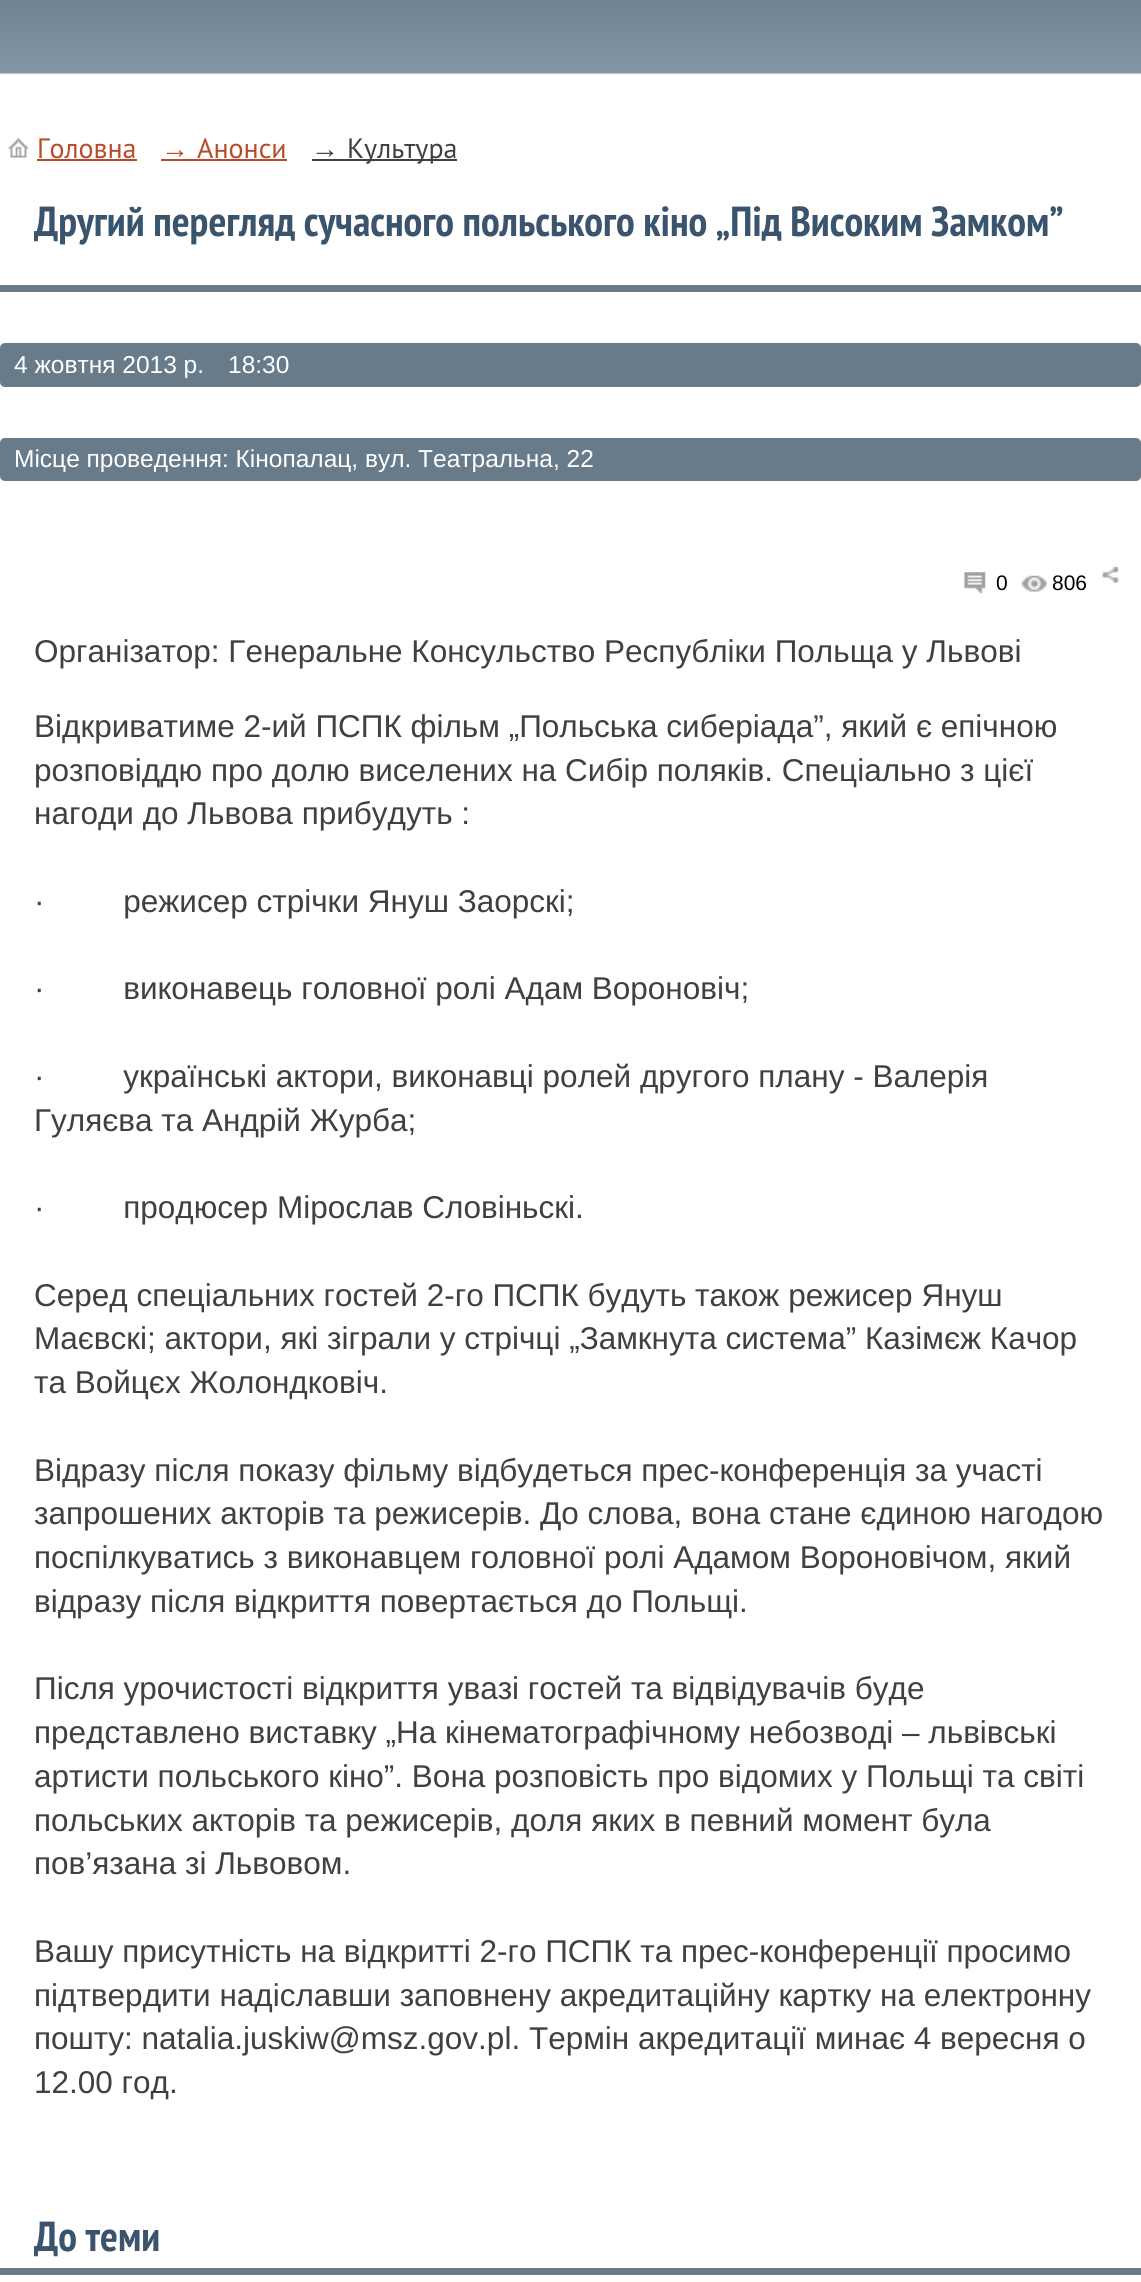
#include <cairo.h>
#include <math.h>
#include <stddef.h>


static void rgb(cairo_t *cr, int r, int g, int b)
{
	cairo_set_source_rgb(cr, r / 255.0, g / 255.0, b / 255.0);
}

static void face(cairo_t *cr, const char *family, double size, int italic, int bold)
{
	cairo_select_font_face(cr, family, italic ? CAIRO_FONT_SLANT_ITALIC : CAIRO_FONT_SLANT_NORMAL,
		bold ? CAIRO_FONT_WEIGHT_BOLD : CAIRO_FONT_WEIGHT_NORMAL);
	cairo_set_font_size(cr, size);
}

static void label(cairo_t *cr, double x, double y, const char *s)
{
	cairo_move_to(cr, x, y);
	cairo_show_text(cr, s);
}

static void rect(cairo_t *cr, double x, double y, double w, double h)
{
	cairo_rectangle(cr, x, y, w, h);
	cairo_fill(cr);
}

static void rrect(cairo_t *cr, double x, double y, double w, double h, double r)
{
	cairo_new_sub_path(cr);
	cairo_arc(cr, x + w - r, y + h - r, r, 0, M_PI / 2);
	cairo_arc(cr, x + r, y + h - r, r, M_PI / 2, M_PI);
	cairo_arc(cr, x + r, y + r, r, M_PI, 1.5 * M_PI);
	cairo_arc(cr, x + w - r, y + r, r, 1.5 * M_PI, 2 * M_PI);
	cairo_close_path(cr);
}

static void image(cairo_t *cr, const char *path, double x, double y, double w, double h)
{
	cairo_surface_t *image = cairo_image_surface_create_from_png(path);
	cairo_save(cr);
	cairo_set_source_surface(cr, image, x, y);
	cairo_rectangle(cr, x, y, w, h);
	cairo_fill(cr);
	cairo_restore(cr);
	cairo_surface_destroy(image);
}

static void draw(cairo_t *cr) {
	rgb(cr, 255, 255, 255);
	cairo_paint(cr);
	rgb(cr, 235, 237, 241);
	rect(cr, 0, 73, 1141, 1);
	image(cr, "image0.png", 0, 0, 1141, 74);
	image(cr, "image1.png", 8, 138, 20, 20);
	face(cr, "PT Sans", 28, 0, 0);
	rgb(cr, 184, 75, 42);
	label(cr, 37, 158, "Головна");
	rect(cr, 37, 159, 100, 2);
	face(cr, "Liberation Serif", 28, 0, 0);
	label(cr, 161, 158, "→");
	rect(cr, 161, 159, 126, 2);
	face(cr, "PT Sans", 28, 0, 0);
	label(cr, 197, 158, "Анонси");
	face(cr, "Liberation Serif", 28, 0, 0);
	rgb(cr, 64, 64, 64);
	label(cr, 311, 158, "→");
	rect(cr, 312, 159, 145, 2);
	face(cr, "PT Sans", 28, 0, 0);
	label(cr, 347, 158, "Культура");
	rgb(cr, 104, 123, 139);
	rect(cr, 0, 285, 1141, 7);
	face(cr, "PT Sans Narrow", 42, 0, 1);
	rgb(cr, 58, 84, 109);
	label(cr, 34, 236, "Другий перегляд сучасного польського кіно „Під Високим Замком”");
	rgb(cr, 104, 123, 139);
	rrect(cr, 0, 343, 1141, 44, 5);
	cairo_fill(cr);
	face(cr, "Liberation Sans", 24.5, 0, 0);
	rgb(cr, 255, 255, 255);
	label(cr, 14, 373, "4 жовтня 2013 р.");
	label(cr, 228, 373, "18:30");
	rgb(cr, 104, 123, 139);
	rrect(cr, 0, 438, 1141, 43, 5);
	cairo_fill(cr);
	rgb(cr, 255, 255, 255);
	label(cr, 14, 467, "Місце проведення: Кінопалац, вул. Театральна, 22");
	image(cr, "image2.png", 964, 572, 22, 22);
	face(cr, "Liberation Sans", 21, 0, 0);
	rgb(cr, 0, 0, 0);
	label(cr, 996, 590, "0");
	image(cr, "image3.png", 1020, 575, 28, 17);
	label(cr, 1052, 590, "806");
	image(cr, "image4.png", 1102, 567, 17, 16);
	face(cr, "Liberation Sans", 31.5, 0, 0);
	rgb(cr, 64, 64, 64);
	label(cr, 34, 662, "Організатор: Генеральне Консульство Республіки Польща у Львові");
	label(cr, 34, 737, "Відкриватиме 2-ий ПСПК фільм „Польська сиберіада”, який є епічною");
	label(cr, 34, 781, "розповіддю про долю виселених на Сибір поляків. Спеціально з цієї");
	label(cr, 34, 824, "нагоди до Львова прибудуть :");
	label(cr, 34, 912, "·         режисер стрічки Януш Заорскі;");
	label(cr, 34, 999, "·         виконавець головної ролі Адам Вороновіч;");
	label(cr, 34, 1087, "·         українські актори, виконавці ролей другого плану - Валерія");
	label(cr, 34, 1131, "Гуляєва та Андрій Журба;");
	label(cr, 34, 1218, "·         продюсер Мірослав Словіньскі.");
	label(cr, 34, 1306, "Серед спеціальних гостей 2-го ПСПК будуть також режисер Януш");
	label(cr, 34, 1349, "Маєвскі; актори, які зіграли у стрічці „Замкнута система” Казімєж Качор");
	label(cr, 34, 1393, "та Войцєх Жолондковіч.");
	label(cr, 34, 1481, "Відразу після показу фільму відбудеться прес-конференція за участі");
	label(cr, 34, 1524, "запрошених акторів та режисерів. До слова, вона стане єдиною нагодою");
	label(cr, 34, 1568, "поспілкуватись з виконавцем головної ролі Адамом Вороновічом, який");
	label(cr, 34, 1612, "відразу після відкриття повертається до Польщі.");
	label(cr, 34, 1699, "Після урочистості відкриття увазі гостей та відвідувачів буде");
	label(cr, 34, 1743, "представлено виставку „На кінематографічному небозводі – львівські");
	label(cr, 34, 1787, "артисти польського кіно”. Вона розповість про відомих у Польщі та світі");
	label(cr, 34, 1831, "польських акторів та режисерів, доля яких в певний момент була");
	label(cr, 34, 1874, "пов’язана зі Львовом.");
	label(cr, 34, 1962, "Вашу присутність на відкритті 2-го ПСПК та прес-конференції просимо");
	label(cr, 34, 2006, "підтвердити надіславши заповнену акредитаційну картку на електронну");
	label(cr, 34, 2049, "пошту: natalia.juskiw@msz.gov.pl. Термін акредитації минає 4 вересня о");
	label(cr, 34, 2093, "12.00 год.");
	rgb(cr, 104, 123, 139);
	rect(cr, 0, 2268, 1141, 7);
	face(cr, "PT Sans Narrow", 42, 0, 1);
	rgb(cr, 58, 84, 109);
	label(cr, 34, 2251, "До теми");
}

int main(void) {
	cairo_surface_t *surface = cairo_image_surface_create(CAIRO_FORMAT_RGB24, 1141, 2282);
	cairo_t *cr = cairo_create(surface);
	cairo_font_options_t *options = cairo_font_options_create();
	cairo_font_options_set_hint_metrics(options, CAIRO_HINT_METRICS_OFF);
	cairo_font_options_set_hint_style(options, CAIRO_HINT_STYLE_NONE);
	cairo_set_font_options(cr, options);
	cairo_set_miter_limit(cr, 4);
	draw(cr);
	cairo_surface_write_to_png(surface, "render.png");
	cairo_font_options_destroy(options);
	cairo_destroy(cr);
	cairo_surface_destroy(surface);
	return 0;
}
